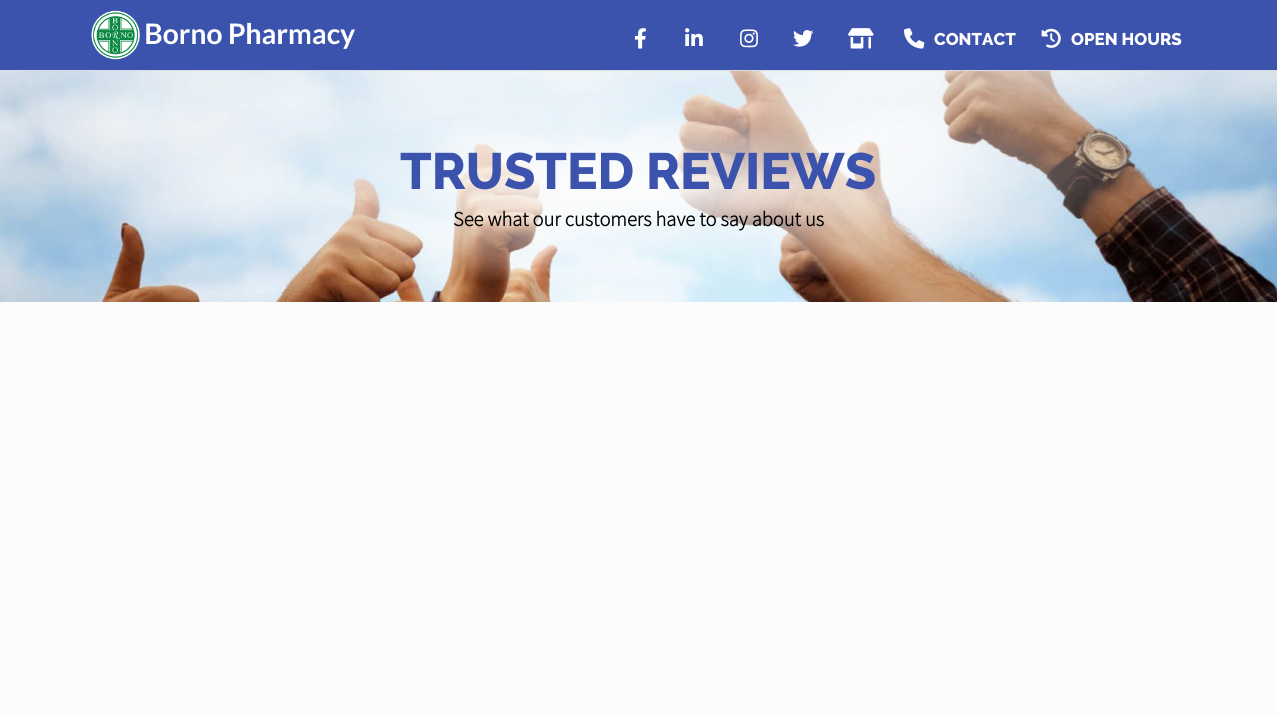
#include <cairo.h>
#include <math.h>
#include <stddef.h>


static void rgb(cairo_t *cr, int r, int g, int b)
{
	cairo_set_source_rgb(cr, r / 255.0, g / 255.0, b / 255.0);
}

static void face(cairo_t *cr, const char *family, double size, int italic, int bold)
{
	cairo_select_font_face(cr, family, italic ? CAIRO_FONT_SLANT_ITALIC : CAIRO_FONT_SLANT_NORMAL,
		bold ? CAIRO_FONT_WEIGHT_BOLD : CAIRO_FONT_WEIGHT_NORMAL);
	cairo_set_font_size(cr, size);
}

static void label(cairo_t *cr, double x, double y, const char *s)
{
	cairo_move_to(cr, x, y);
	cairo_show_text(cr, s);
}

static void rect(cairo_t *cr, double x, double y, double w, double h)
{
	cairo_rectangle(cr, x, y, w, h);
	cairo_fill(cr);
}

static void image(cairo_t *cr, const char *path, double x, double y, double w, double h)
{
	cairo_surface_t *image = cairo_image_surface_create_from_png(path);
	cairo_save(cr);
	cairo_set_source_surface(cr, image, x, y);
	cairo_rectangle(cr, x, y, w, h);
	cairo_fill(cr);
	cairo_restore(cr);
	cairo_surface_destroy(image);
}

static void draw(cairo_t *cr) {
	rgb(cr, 252, 252, 252);
	cairo_paint(cr);
	rgb(cr, 60, 83, 174);
	rect(cr, 0, 0, 1277, 70);
	rgb(cr, 221, 221, 221);
	rect(cr, 0, 70, 1277, 1);
	image(cr, "image0.png", 91, 10, 264, 50);
	image(cr, "image1.png", 634, 28, 12, 21);
	image(cr, "image2.png", 685, 28, 18, 18);
	image(cr, "image3.png", 740, 29, 18, 19);
	image(cr, "image4.png", 793, 30, 21, 17);
	image(cr, "image5.png", 848, 28, 26, 21);
	image(cr, "image6.png", 904, 28, 21, 21);
	face(cr, "Raleway ExtraBold", 17, 0, 0);
	rgb(cr, 255, 255, 255);
	label(cr, 934, 45, "CONTACT");
	image(cr, "image7.png", 1041, 28, 20, 20);
	label(cr, 1071, 45, "OPEN HOURS");
	image(cr, "image8.png", 0, 71, 1277, 231);
	face(cr, "Raleway ExtraBold", 51, 0, 0);
	rgb(cr, 60, 83, 174);
	label(cr, 400, 189, "TRUSTED REVIEWS");
	face(cr, "Source Sans Pro", 20.4, 0, 1);
	rgb(cr, 0, 0, 0);
	label(cr, 453, 226, "See what our customers have to say about us");
}

int main(void) {
	cairo_surface_t *surface = cairo_image_surface_create(CAIRO_FORMAT_RGB24, 1277, 715);
	cairo_t *cr = cairo_create(surface);
	cairo_font_options_t *options = cairo_font_options_create();
	cairo_font_options_set_hint_metrics(options, CAIRO_HINT_METRICS_OFF);
	cairo_font_options_set_hint_style(options, CAIRO_HINT_STYLE_NONE);
	cairo_set_font_options(cr, options);
	cairo_set_miter_limit(cr, 4);
	draw(cr);
	cairo_surface_write_to_png(surface, "render.png");
	cairo_font_options_destroy(options);
	cairo_destroy(cr);
	cairo_surface_destroy(surface);
	return 0;
}
